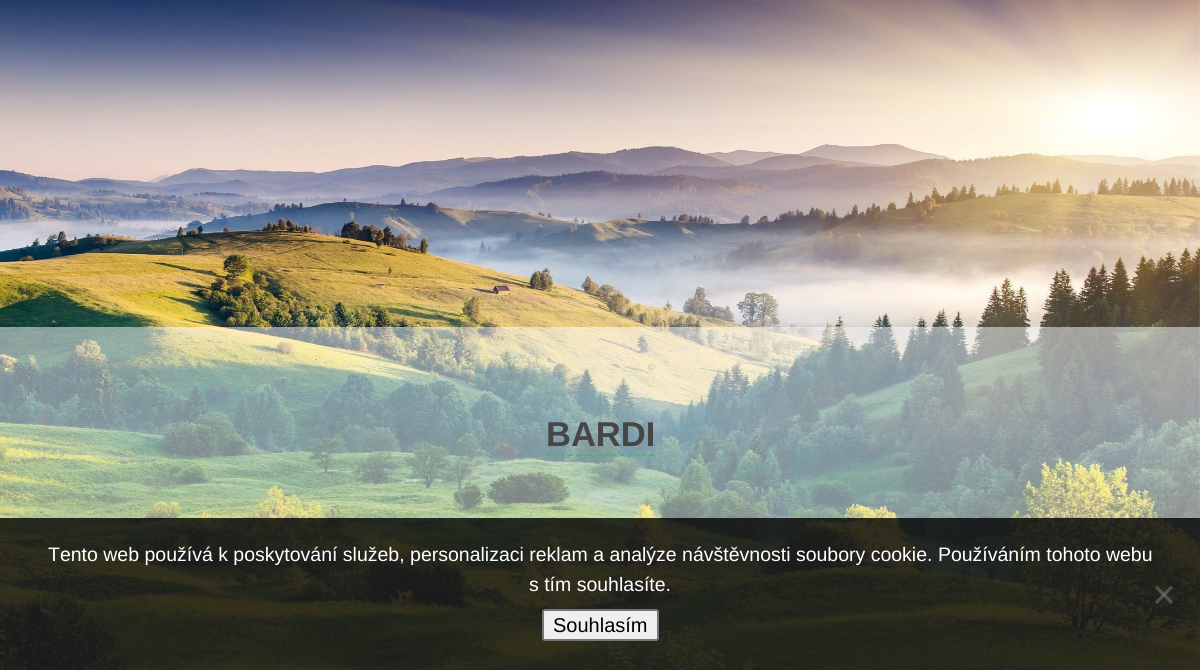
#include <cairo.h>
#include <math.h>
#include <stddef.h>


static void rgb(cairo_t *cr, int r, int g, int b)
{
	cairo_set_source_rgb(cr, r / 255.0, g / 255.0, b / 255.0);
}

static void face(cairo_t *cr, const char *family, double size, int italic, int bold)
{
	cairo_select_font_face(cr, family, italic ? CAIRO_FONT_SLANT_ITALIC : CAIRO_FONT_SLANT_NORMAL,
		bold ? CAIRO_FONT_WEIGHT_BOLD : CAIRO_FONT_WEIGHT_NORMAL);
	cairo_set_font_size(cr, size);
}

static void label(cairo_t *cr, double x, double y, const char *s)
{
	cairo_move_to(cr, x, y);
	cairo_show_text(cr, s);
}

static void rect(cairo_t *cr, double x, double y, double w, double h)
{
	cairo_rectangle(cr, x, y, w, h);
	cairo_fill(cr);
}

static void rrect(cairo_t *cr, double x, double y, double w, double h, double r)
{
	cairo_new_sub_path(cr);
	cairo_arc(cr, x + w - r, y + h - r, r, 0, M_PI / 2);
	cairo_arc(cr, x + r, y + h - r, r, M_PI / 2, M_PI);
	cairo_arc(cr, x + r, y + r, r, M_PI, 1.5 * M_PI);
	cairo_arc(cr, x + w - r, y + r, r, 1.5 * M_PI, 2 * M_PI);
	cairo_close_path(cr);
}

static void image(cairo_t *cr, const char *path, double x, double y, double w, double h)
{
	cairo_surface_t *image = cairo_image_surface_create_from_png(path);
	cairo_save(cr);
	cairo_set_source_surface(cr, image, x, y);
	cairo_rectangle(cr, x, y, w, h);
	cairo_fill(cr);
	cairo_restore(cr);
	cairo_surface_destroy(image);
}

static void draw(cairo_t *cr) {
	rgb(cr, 255, 255, 255);
	cairo_paint(cr);
	image(cr, "image0.png", 0, 0, 1200, 670);
	cairo_set_source_rgba(cr, 1, 1, 1, 0.5);
	rect(cr, 0, 327, 1200, 343);
	face(cr, "Liberation Sans", 34.5, 0, 1);
	rgb(cr, 70, 70, 70);
	label(cr, 546, 446, "BARDI");
	cairo_new_path(cr);
	cairo_move_to(cr, 546, 455);
	cairo_line_to(cr, 654, 455);
	rgb(cr, 64, 183, 106);
	cairo_set_line_width(cr, 1.5);
	cairo_set_dash(cr, (double[]){4.5, 2.9}, 2, 0);
	cairo_stroke(cr);
	cairo_set_source_rgba(cr, 0, 0, 0, 0.8);
	rect(cr, 0, 518, 1200, 152);
	face(cr, "Liberation Sans", 19.5, 0, 0);
	rgb(cr, 255, 255, 255);
	label(cr, 48, 561, "Tento web používá k poskytování služeb, personalizaci reklam a analýze návštěvnosti soubory cookie. Používáním tohoto webu");
	label(cr, 529, 591, "s tím souhlasíte.");
	cairo_set_source_rgba(cr, 0.502, 0.502, 0.502, 0.5);
	cairo_new_path(cr);
	cairo_move_to(cr, 1171, 585.5);
	cairo_line_to(cr, 1173, 588);
	cairo_line_to(cr, 1157, 604);
	cairo_line_to(cr, 1155, 601.5);
	cairo_close_path(cr);
	cairo_fill(cr);
	cairo_new_path(cr);
	cairo_move_to(cr, 1155, 588);
	cairo_line_to(cr, 1157, 585.5);
	cairo_line_to(cr, 1173, 601.5);
	cairo_line_to(cr, 1171, 604);
	cairo_close_path(cr);
	cairo_fill(cr);
	rgb(cr, 239, 239, 239);
	rrect(cr, 543, 610, 115, 30, 2);
	cairo_fill_preserve(cr);
	rgb(cr, 118, 118, 118);
	cairo_set_line_width(cr, 2);
	cairo_set_dash(cr, NULL, 0, 0);
	cairo_stroke(cr);
	face(cr, "Liberation Sans", 20, 0, 0);
	rgb(cr, 0, 0, 0);
	label(cr, 553, 632, "Souhlasím");
}

int main(void) {
	cairo_surface_t *surface = cairo_image_surface_create(CAIRO_FORMAT_RGB24, 1200, 670);
	cairo_t *cr = cairo_create(surface);
	cairo_font_options_t *options = cairo_font_options_create();
	cairo_font_options_set_hint_metrics(options, CAIRO_HINT_METRICS_OFF);
	cairo_font_options_set_hint_style(options, CAIRO_HINT_STYLE_NONE);
	cairo_set_font_options(cr, options);
	cairo_set_miter_limit(cr, 4);
	draw(cr);
	cairo_surface_write_to_png(surface, "render.png");
	cairo_font_options_destroy(options);
	cairo_destroy(cr);
	cairo_surface_destroy(surface);
	return 0;
}
